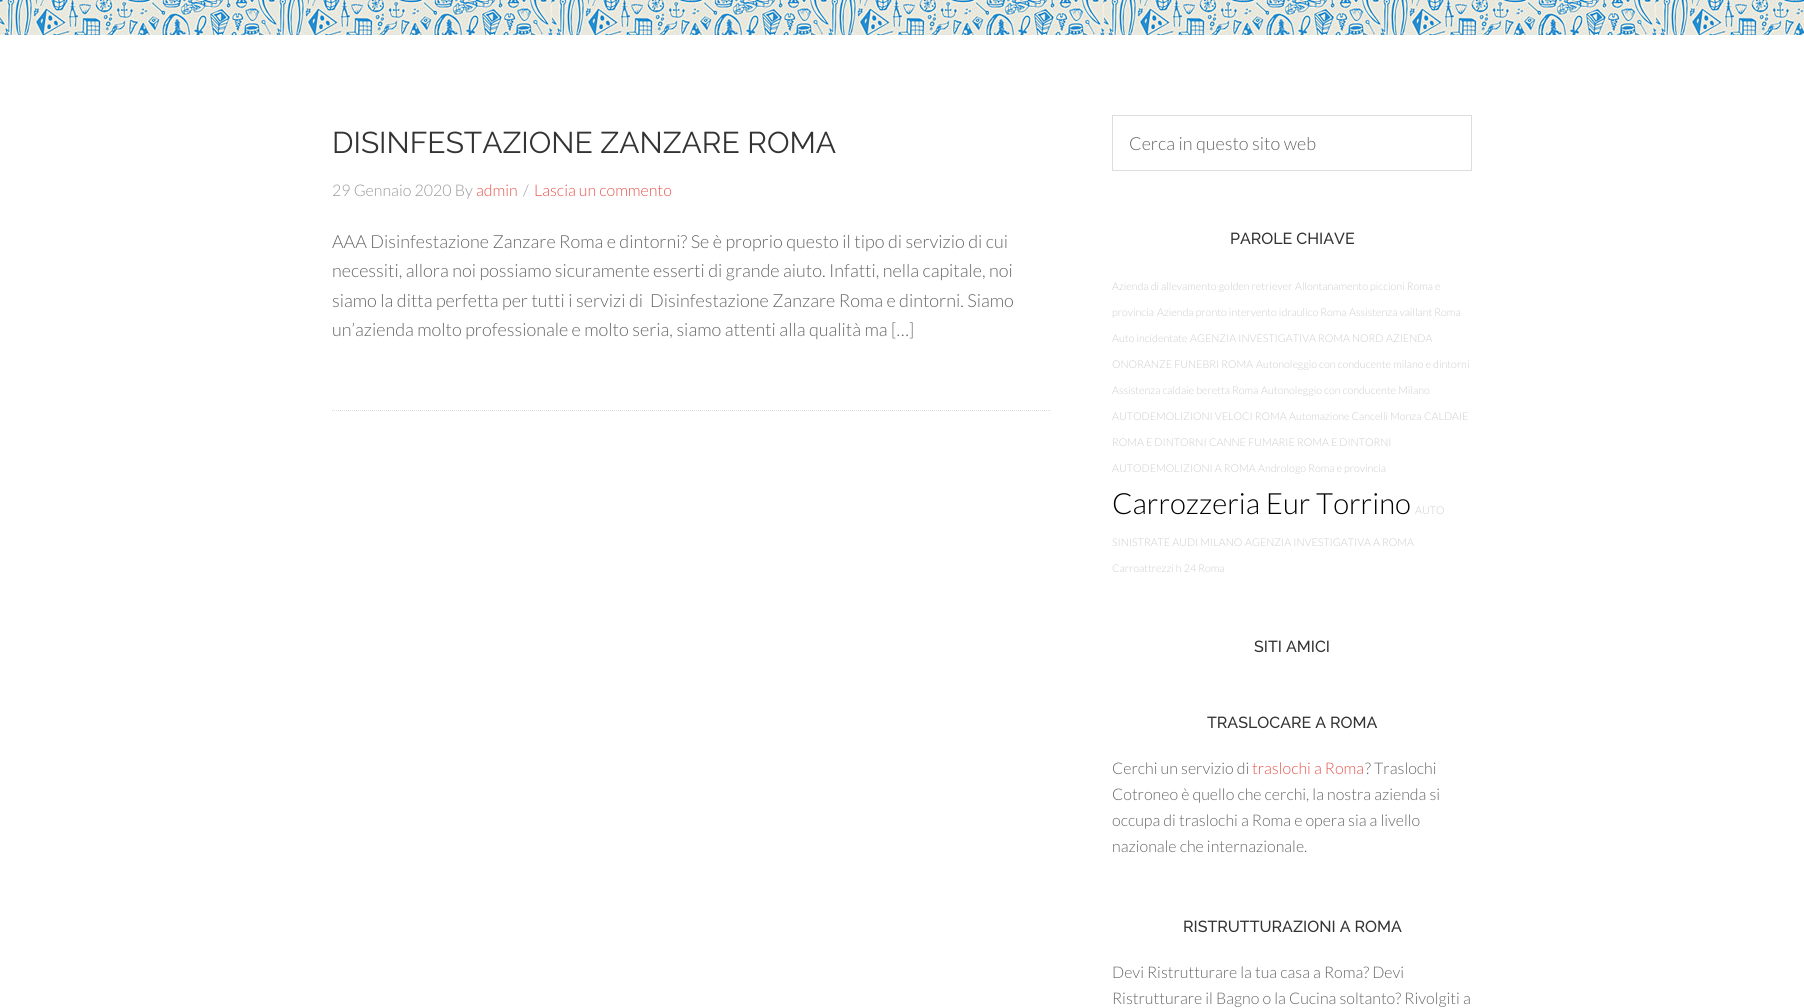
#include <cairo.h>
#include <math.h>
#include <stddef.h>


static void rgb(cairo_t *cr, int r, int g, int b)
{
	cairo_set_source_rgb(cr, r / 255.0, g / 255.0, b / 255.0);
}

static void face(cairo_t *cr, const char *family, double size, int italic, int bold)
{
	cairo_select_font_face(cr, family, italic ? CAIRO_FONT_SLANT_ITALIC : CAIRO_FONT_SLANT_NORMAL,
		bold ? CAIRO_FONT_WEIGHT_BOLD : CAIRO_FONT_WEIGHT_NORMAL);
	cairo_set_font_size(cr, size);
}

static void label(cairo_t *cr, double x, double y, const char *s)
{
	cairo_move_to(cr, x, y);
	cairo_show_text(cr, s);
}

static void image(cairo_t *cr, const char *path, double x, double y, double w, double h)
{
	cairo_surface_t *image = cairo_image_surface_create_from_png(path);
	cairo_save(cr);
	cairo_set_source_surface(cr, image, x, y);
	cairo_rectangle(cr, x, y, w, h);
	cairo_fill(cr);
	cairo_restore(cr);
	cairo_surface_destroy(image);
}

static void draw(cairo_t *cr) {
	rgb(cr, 255, 255, 255);
	cairo_paint(cr);
	image(cr, "image0.png", 0, 0, 1804, 35);
	cairo_new_path(cr);
	cairo_move_to(cr, 332, 410.5);
	cairo_line_to(cr, 1052, 410.5);
	rgb(cr, 221, 221, 221);
	cairo_set_line_width(cr, 1);
	cairo_set_dash(cr, (double[]){1, 1}, 2, 0);
	cairo_stroke(cr);
	face(cr, "Raleway", 30, 0, 0);
	rgb(cr, 51, 51, 51);
	label(cr, 332, 153, "DISINFESTAZIONE ZANZARE ROMA");
	face(cr, "Lato Light", 16, 0, 0);
	rgb(cr, 153, 153, 153);
	label(cr, 332, 196, "29 Gennaio 2020 By");
	rgb(cr, 229, 85, 78);
	label(cr, 476, 196, "admin");
	rgb(cr, 153, 153, 153);
	label(cr, 523, 196, "/");
	rgb(cr, 229, 85, 78);
	label(cr, 534, 196, "Lascia un commento");
	face(cr, "Lato Light", 18, 0, 0);
	rgb(cr, 102, 102, 102);
	label(cr, 332, 248, "AAA Disinfestazione Zanzare Roma e dintorni? Se è proprio questo il tipo di servizio di cui");
	label(cr, 332, 277, "necessiti, allora noi possiamo sicuramente esserti di grande aiuto. Infatti, nella capitale, noi");
	label(cr, 332, 307, "siamo la ditta perfetta per tutti i servizi di  Disinfestazione Zanzare Roma e dintorni. Siamo");
	label(cr, 332, 336, "un’azienda molto professionale e molto seria, siamo attenti alla qualità ma […]");
	cairo_rectangle(cr, 1112.5, 115.5, 359, 55);
	rgb(cr, 221, 221, 221);
	cairo_set_dash(cr, NULL, 0, 0);
	cairo_stroke(cr);
	rgb(cr, 102, 102, 102);
	label(cr, 1129, 150, "Cerca in questo sito web");
	face(cr, "Raleway Medium", 16, 0, 0);
	rgb(cr, 51, 51, 51);
	label(cr, 1230, 244, "PAROLE CHIAVE");
	face(cr, "Lato Light", 10.7, 0, 0);
	rgb(cr, 204, 204, 204);
	label(cr, 1112, 290, "Azienda di allevamento golden retriever");
	label(cr, 1295, 290, "Allontanamento piccioni Roma e");
	label(cr, 1112, 316, "provincia");
	label(cr, 1157, 316, "Azienda pronto intervento idraulico Roma");
	label(cr, 1349, 316, "Assistenza vaillant Roma");
	label(cr, 1112, 342, "Auto incidentate");
	label(cr, 1190, 342, "AGENZIA INVESTIGATIVA ROMA NORD");
	label(cr, 1386, 342, "AZIENDA");
	label(cr, 1112, 368, "ONORANZE FUNEBRI ROMA");
	label(cr, 1256, 368, "Autonoleggio con conducente milano e dintorni");
	label(cr, 1112, 394, "Assistenza caldaie beretta Roma");
	label(cr, 1261, 394, "Autonoleggio con conducente Milano");
	label(cr, 1112, 420, "AUTODEMOLIZIONI VELOCI ROMA");
	label(cr, 1289, 420, "Automazione Cancelli Monza");
	label(cr, 1424, 420, "CALDAIE");
	label(cr, 1112, 446, "ROMA E DINTORNI");
	label(cr, 1209, 446, "CANNE FUMARIE ROMA E DINTORNI");
	label(cr, 1112, 472, "AUTODEMOLIZIONI A ROMA");
	label(cr, 1258, 472, "Andrologo Roma e provincia");
	face(cr, "Lato Light", 29.25, 0, 0);
	rgb(cr, 0, 0, 0);
	label(cr, 1112, 514, "Carrozzeria Eur Torrino");
	face(cr, "Lato Light", 10.7, 0, 0);
	rgb(cr, 204, 204, 204);
	label(cr, 1415, 514, "AUTO");
	label(cr, 1112, 546, "SINISTRATE AUDI MILANO");
	label(cr, 1245, 546, "AGENZIA INVESTIGATIVA A ROMA");
	label(cr, 1112, 572, "Carroattrezzi h 24 Roma");
	face(cr, "Raleway Medium", 16, 0, 0);
	rgb(cr, 51, 51, 51);
	label(cr, 1254, 652, "SITI AMICI");
	label(cr, 1207, 728, "TRASLOCARE A ROMA");
	face(cr, "Lato Light", 16, 0, 0);
	rgb(cr, 102, 102, 102);
	label(cr, 1112, 774, "Cerchi un servizio di");
	rgb(cr, 229, 85, 78);
	label(cr, 1252, 774, "traslochi a Roma");
	rgb(cr, 102, 102, 102);
	label(cr, 1365, 774, "? Traslochi");
	label(cr, 1112, 800, "Cotroneo è quello che cerchi, la nostra azienda si");
	label(cr, 1112, 826, "occupa di traslochi a Roma e opera sia a livello");
	label(cr, 1112, 852, "nazionale che internazionale.");
	face(cr, "Raleway Medium", 16, 0, 0);
	rgb(cr, 51, 51, 51);
	label(cr, 1183, 932, "RISTRUTTURAZIONI A ROMA");
	face(cr, "Lato Light", 16, 0, 0);
	rgb(cr, 102, 102, 102);
	label(cr, 1112, 978, "Devi Ristrutturare la tua casa a Roma? Devi");
	label(cr, 1112, 1004, "Ristrutturare il Bagno o la Cucina soltanto? Rivolgiti a");
}

int main(void) {
	cairo_surface_t *surface = cairo_image_surface_create(CAIRO_FORMAT_RGB24, 1804, 1008);
	cairo_t *cr = cairo_create(surface);
	cairo_font_options_t *options = cairo_font_options_create();
	cairo_font_options_set_hint_metrics(options, CAIRO_HINT_METRICS_OFF);
	cairo_font_options_set_hint_style(options, CAIRO_HINT_STYLE_NONE);
	cairo_set_font_options(cr, options);
	cairo_set_miter_limit(cr, 4);
	draw(cr);
	cairo_surface_write_to_png(surface, "render.png");
	cairo_font_options_destroy(options);
	cairo_destroy(cr);
	cairo_surface_destroy(surface);
	return 0;
}
